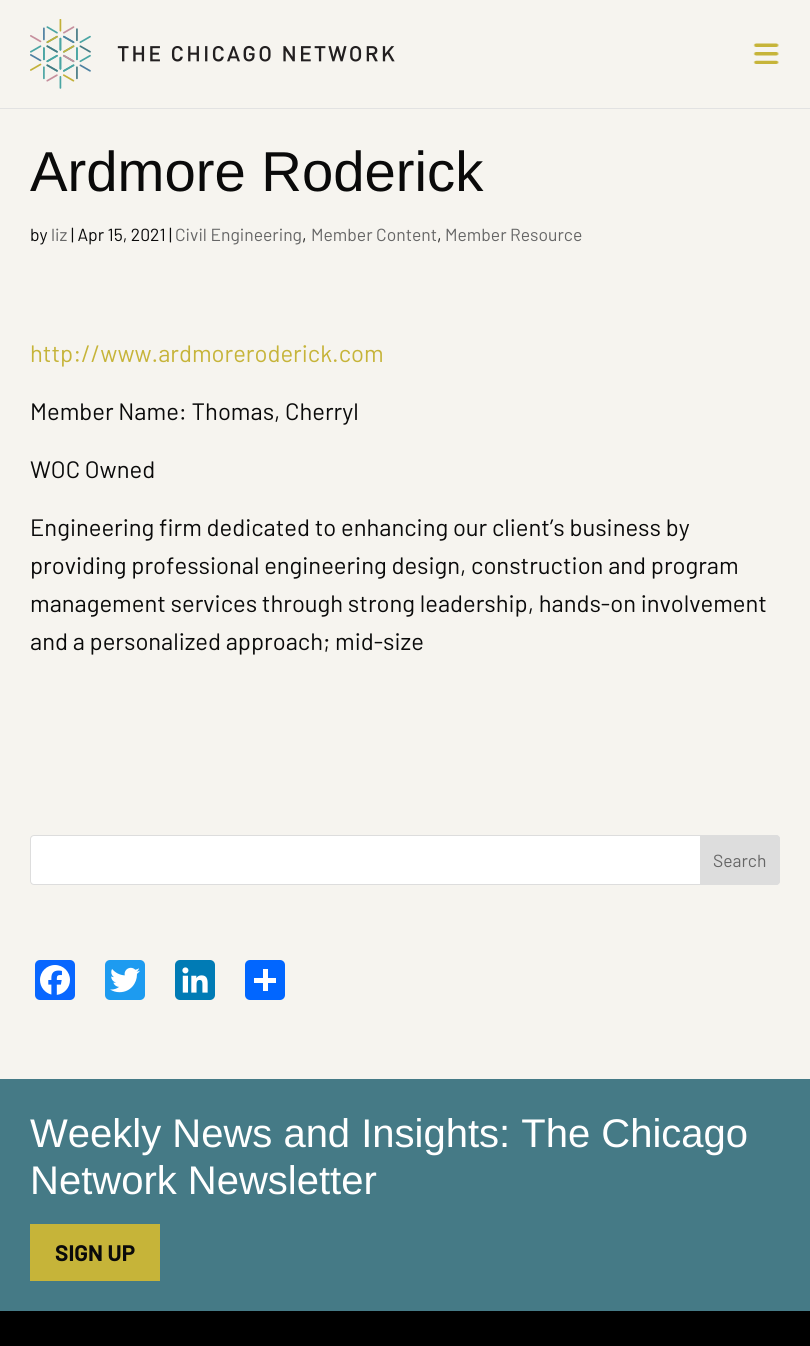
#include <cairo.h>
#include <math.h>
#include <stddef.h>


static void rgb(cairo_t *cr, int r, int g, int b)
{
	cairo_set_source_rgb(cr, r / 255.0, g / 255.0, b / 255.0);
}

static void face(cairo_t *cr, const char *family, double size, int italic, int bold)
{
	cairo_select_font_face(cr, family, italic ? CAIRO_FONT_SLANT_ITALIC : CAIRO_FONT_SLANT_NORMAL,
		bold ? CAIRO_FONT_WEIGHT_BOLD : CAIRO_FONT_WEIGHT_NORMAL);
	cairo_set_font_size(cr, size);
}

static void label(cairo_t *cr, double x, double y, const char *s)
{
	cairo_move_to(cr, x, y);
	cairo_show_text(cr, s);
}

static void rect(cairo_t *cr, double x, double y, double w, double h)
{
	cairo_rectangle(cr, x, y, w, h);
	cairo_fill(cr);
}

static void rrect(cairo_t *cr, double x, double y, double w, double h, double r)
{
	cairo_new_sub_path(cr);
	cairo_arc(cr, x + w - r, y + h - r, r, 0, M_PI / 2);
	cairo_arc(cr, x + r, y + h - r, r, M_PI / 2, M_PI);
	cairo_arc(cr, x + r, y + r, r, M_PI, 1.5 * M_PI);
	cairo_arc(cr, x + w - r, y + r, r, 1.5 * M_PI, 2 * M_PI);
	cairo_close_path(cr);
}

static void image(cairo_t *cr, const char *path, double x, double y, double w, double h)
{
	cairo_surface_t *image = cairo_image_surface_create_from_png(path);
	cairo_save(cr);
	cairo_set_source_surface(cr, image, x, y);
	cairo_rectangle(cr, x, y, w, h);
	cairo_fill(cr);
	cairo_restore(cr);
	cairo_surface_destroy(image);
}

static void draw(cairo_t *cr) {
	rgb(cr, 246, 244, 239);
	cairo_paint(cr);
	image(cr, "image0.png", 30, 19, 365, 70);
	image(cr, "image1.png", 753, 43, 26, 21);
	rgb(cr, 226, 226, 226);
	rect(cr, 0, 108, 810, 1);
	face(cr, "Liberation Sans", 56.25, 0, 0);
	rgb(cr, 10, 10, 10);
	label(cr, 30, 191, "Ardmore Roderick");
	face(cr, "Barlow", 17.5, 0, 0);
	label(cr, 30, 241, "by");
	rgb(cr, 102, 102, 102);
	label(cr, 51, 241, "liz");
	rgb(cr, 10, 10, 10);
	label(cr, 71, 241, "| Apr 15, 2021 |");
	rgb(cr, 102, 102, 102);
	label(cr, 175, 241, "Civil Engineering");
	rgb(cr, 10, 10, 10);
	label(cr, 302, 241, ",");
	rgb(cr, 102, 102, 102);
	label(cr, 311, 241, "Member Content");
	rgb(cr, 10, 10, 10);
	label(cr, 437, 241, ",");
	rgb(cr, 102, 102, 102);
	label(cr, 445, 241, "Member Resource");
	face(cr, "Barlow", 23.75, 0, 0);
	rgb(cr, 198, 180, 57);
	label(cr, 30, 362, "http://www.ardmoreroderick.com");
	rgb(cr, 10, 10, 10);
	label(cr, 30, 420, "Member Name: Thomas, Cherryl");
	label(cr, 30, 478, "WOC Owned");
	label(cr, 30, 536, "Engineering firm dedicated to enhancing our client’s business by");
	label(cr, 30, 574, "providing professional engineering design, construction and program");
	label(cr, 30, 612, "management services through strong leadership, hands-on involvement");
	label(cr, 30, 650, "and a personalized approach; mid-size");
	rgb(cr, 255, 255, 255);
	rrect(cr, 30.5, 835.5, 749, 49, 3.5);
	cairo_fill_preserve(cr);
	rgb(cr, 221, 221, 221);
	cairo_set_line_width(cr, 1);
	cairo_stroke(cr);
	cairo_new_path(cr);
	cairo_move_to(cr, 700.5, 835.5);
	cairo_line_to(cr, 776, 835.5);
	cairo_curve_to(cr, 778, 835.5, 779.5, 837, 779.5, 839);
	cairo_line_to(cr, 779.5, 881);
	cairo_curve_to(cr, 779.5, 883, 778, 884.5, 776, 884.5);
	cairo_line_to(cr, 700.5, 884.5);
	cairo_close_path(cr);
	cairo_fill_preserve(cr);
	cairo_stroke(cr);
	face(cr, "Barlow", 17.5, 0, 0);
	rgb(cr, 102, 102, 102);
	label(cr, 713, 867, "Search");
	rgb(cr, 8, 102, 255);
	rrect(cr, 35, 960, 40, 40, 5);
	cairo_fill(cr);
	image(cr, "image2.png", 40, 965, 30, 30);
	rgb(cr, 29, 155, 240);
	rrect(cr, 105, 960, 40, 40, 5);
	cairo_fill(cr);
	image(cr, "image3.png", 110, 967, 30, 26);
	rgb(cr, 0, 123, 181);
	rrect(cr, 175, 960, 40, 40, 5);
	cairo_fill(cr);
	image(cr, "image4.png", 182, 967, 26, 26);
	rgb(cr, 1, 102, 255);
	rrect(cr, 245, 960, 40, 40, 5);
	cairo_fill(cr);
	rgb(cr, 255, 255, 255);
	rect(cr, 263, 969, 5, 22);
	rect(cr, 254, 978, 22, 5);
	rgb(cr, 69, 122, 134);
	rect(cr, 0, 1079, 810, 232);
	face(cr, "Liberation Sans", 40, 0, 0);
	rgb(cr, 255, 255, 255);
	label(cr, 30, 1147, "Weekly News and Insights: The Chicago");
	label(cr, 30, 1194, "Network Newsletter");
	rgb(cr, 198, 180, 57);
	rect(cr, 30, 1224, 130, 57);
	face(cr, "Barlow", 22.5, 0, 1);
	rgb(cr, 10, 10, 10);
	label(cr, 55, 1261, "SIGN UP");
	rgb(cr, 0, 0, 0);
	rect(cr, 0, 1311, 810, 35);
}

int main(void) {
	cairo_surface_t *surface = cairo_image_surface_create(CAIRO_FORMAT_RGB24, 810, 1346);
	cairo_t *cr = cairo_create(surface);
	cairo_font_options_t *options = cairo_font_options_create();
	cairo_font_options_set_hint_metrics(options, CAIRO_HINT_METRICS_OFF);
	cairo_font_options_set_hint_style(options, CAIRO_HINT_STYLE_NONE);
	cairo_set_font_options(cr, options);
	cairo_set_miter_limit(cr, 4);
	draw(cr);
	cairo_surface_write_to_png(surface, "render.png");
	cairo_font_options_destroy(options);
	cairo_destroy(cr);
	cairo_surface_destroy(surface);
	return 0;
}
